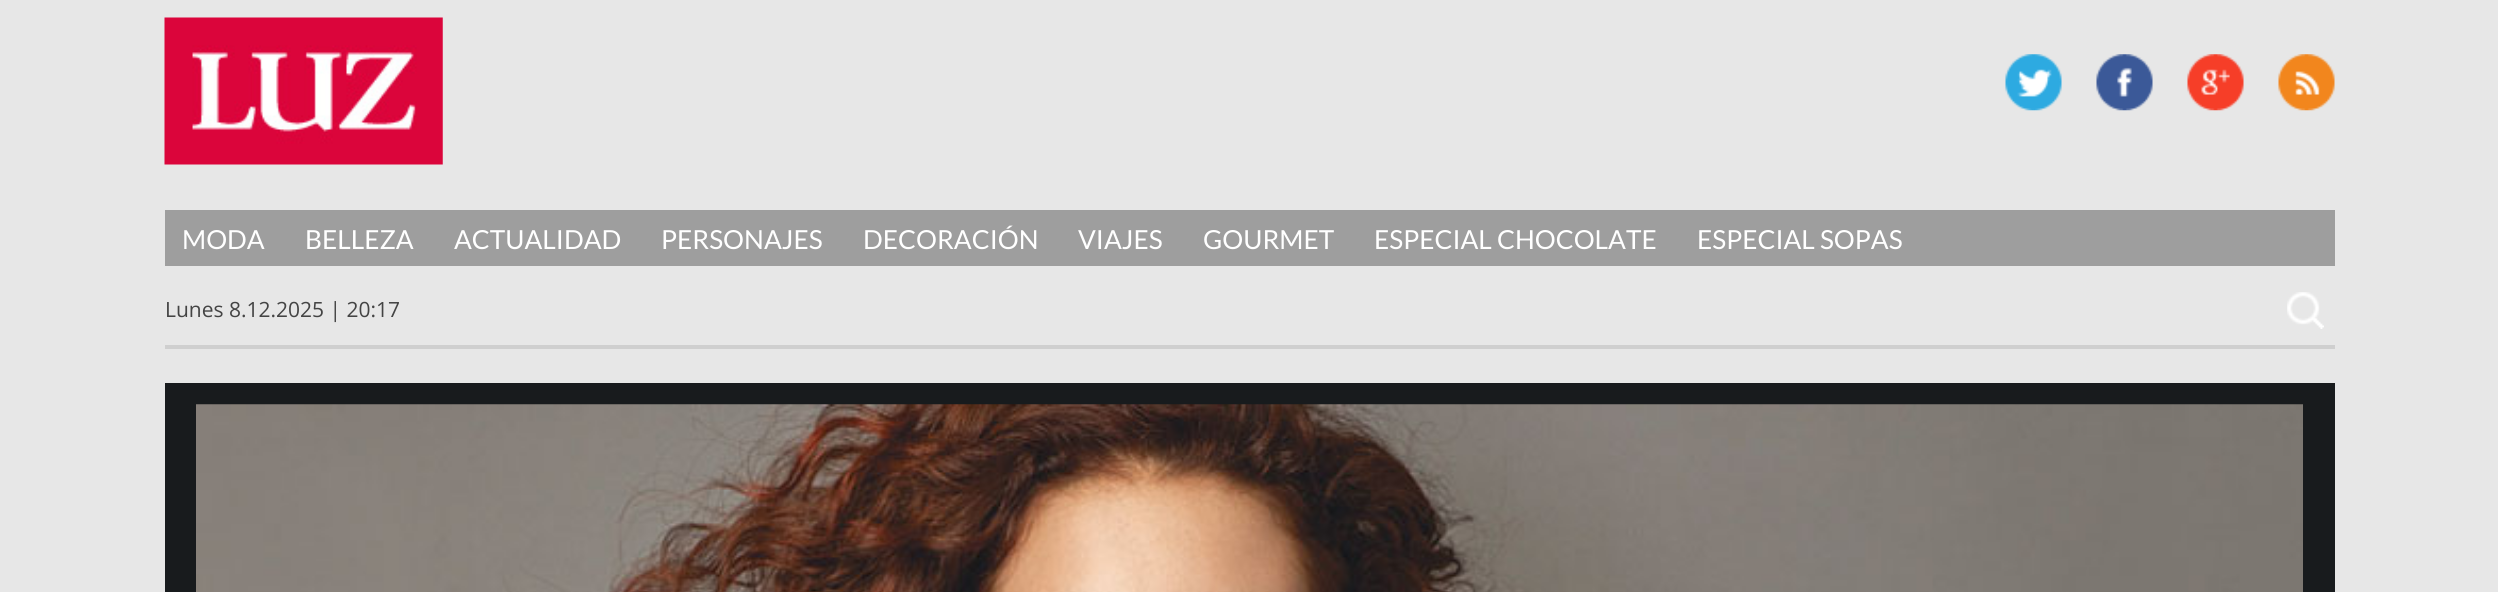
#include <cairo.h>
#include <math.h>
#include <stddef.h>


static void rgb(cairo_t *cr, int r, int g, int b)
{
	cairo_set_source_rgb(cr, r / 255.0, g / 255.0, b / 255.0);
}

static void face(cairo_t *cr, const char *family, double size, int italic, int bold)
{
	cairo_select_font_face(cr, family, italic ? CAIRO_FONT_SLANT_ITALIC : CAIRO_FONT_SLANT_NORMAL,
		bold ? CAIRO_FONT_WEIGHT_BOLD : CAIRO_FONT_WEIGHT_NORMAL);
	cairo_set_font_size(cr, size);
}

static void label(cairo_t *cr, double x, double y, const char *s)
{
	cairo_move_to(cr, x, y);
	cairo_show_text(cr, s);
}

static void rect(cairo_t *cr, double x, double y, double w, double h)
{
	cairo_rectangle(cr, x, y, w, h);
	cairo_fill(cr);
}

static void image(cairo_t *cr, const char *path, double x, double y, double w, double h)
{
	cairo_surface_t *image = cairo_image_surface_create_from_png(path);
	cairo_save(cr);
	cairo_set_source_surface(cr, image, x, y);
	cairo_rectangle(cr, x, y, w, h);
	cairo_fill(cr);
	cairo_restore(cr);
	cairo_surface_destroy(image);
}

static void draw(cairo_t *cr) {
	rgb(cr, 231, 231, 231);
	cairo_paint(cr);
	image(cr, "image0.png", 164, 17, 279, 148);
	image(cr, "image1.png", 2005, 54, 57, 57);
	image(cr, "image2.png", 2096, 54, 57, 57);
	image(cr, "image3.png", 2187, 54, 57, 57);
	image(cr, "image4.png", 2278, 54, 57, 57);
	rgb(cr, 158, 158, 158);
	rect(cr, 165, 210, 2170, 56);
	face(cr, "Lato", 26.25, 0, 0);
	rgb(cr, 255, 255, 255);
	label(cr, 182, 249, "MODA");
	label(cr, 305, 249, "BELLEZA");
	label(cr, 454, 249, "ACTUALIDAD");
	label(cr, 661, 249, "PERSONAJES");
	label(cr, 863, 249, "DECORACIÓN");
	label(cr, 1078, 249, "VIAJES");
	label(cr, 1203, 249, "GOURMET");
	label(cr, 1374, 249, "ESPECIAL CHOCOLATE");
	label(cr, 1697, 249, "ESPECIAL SOPAS");
	rgb(cr, 207, 207, 207);
	rect(cr, 165, 345, 2170, 4);
	face(cr, "Open Sans", 21, 0, 0);
	rgb(cr, 68, 68, 68);
	label(cr, 165, 317, "Lunes 8.12.2025 | 20:17");
	image(cr, "image5.png", 2287, 292, 37, 37);
	rgb(cr, 24, 27, 29);
	rect(cr, 165, 383, 2170, 209);
	image(cr, "image6.png", 196, 404, 2107, 188);
}

int main(void) {
	cairo_surface_t *surface = cairo_image_surface_create(CAIRO_FORMAT_RGB24, 2498, 592);
	cairo_t *cr = cairo_create(surface);
	cairo_font_options_t *options = cairo_font_options_create();
	cairo_font_options_set_hint_metrics(options, CAIRO_HINT_METRICS_OFF);
	cairo_font_options_set_hint_style(options, CAIRO_HINT_STYLE_NONE);
	cairo_set_font_options(cr, options);
	cairo_set_miter_limit(cr, 4);
	draw(cr);
	cairo_surface_write_to_png(surface, "render.png");
	cairo_font_options_destroy(options);
	cairo_destroy(cr);
	cairo_surface_destroy(surface);
	return 0;
}
